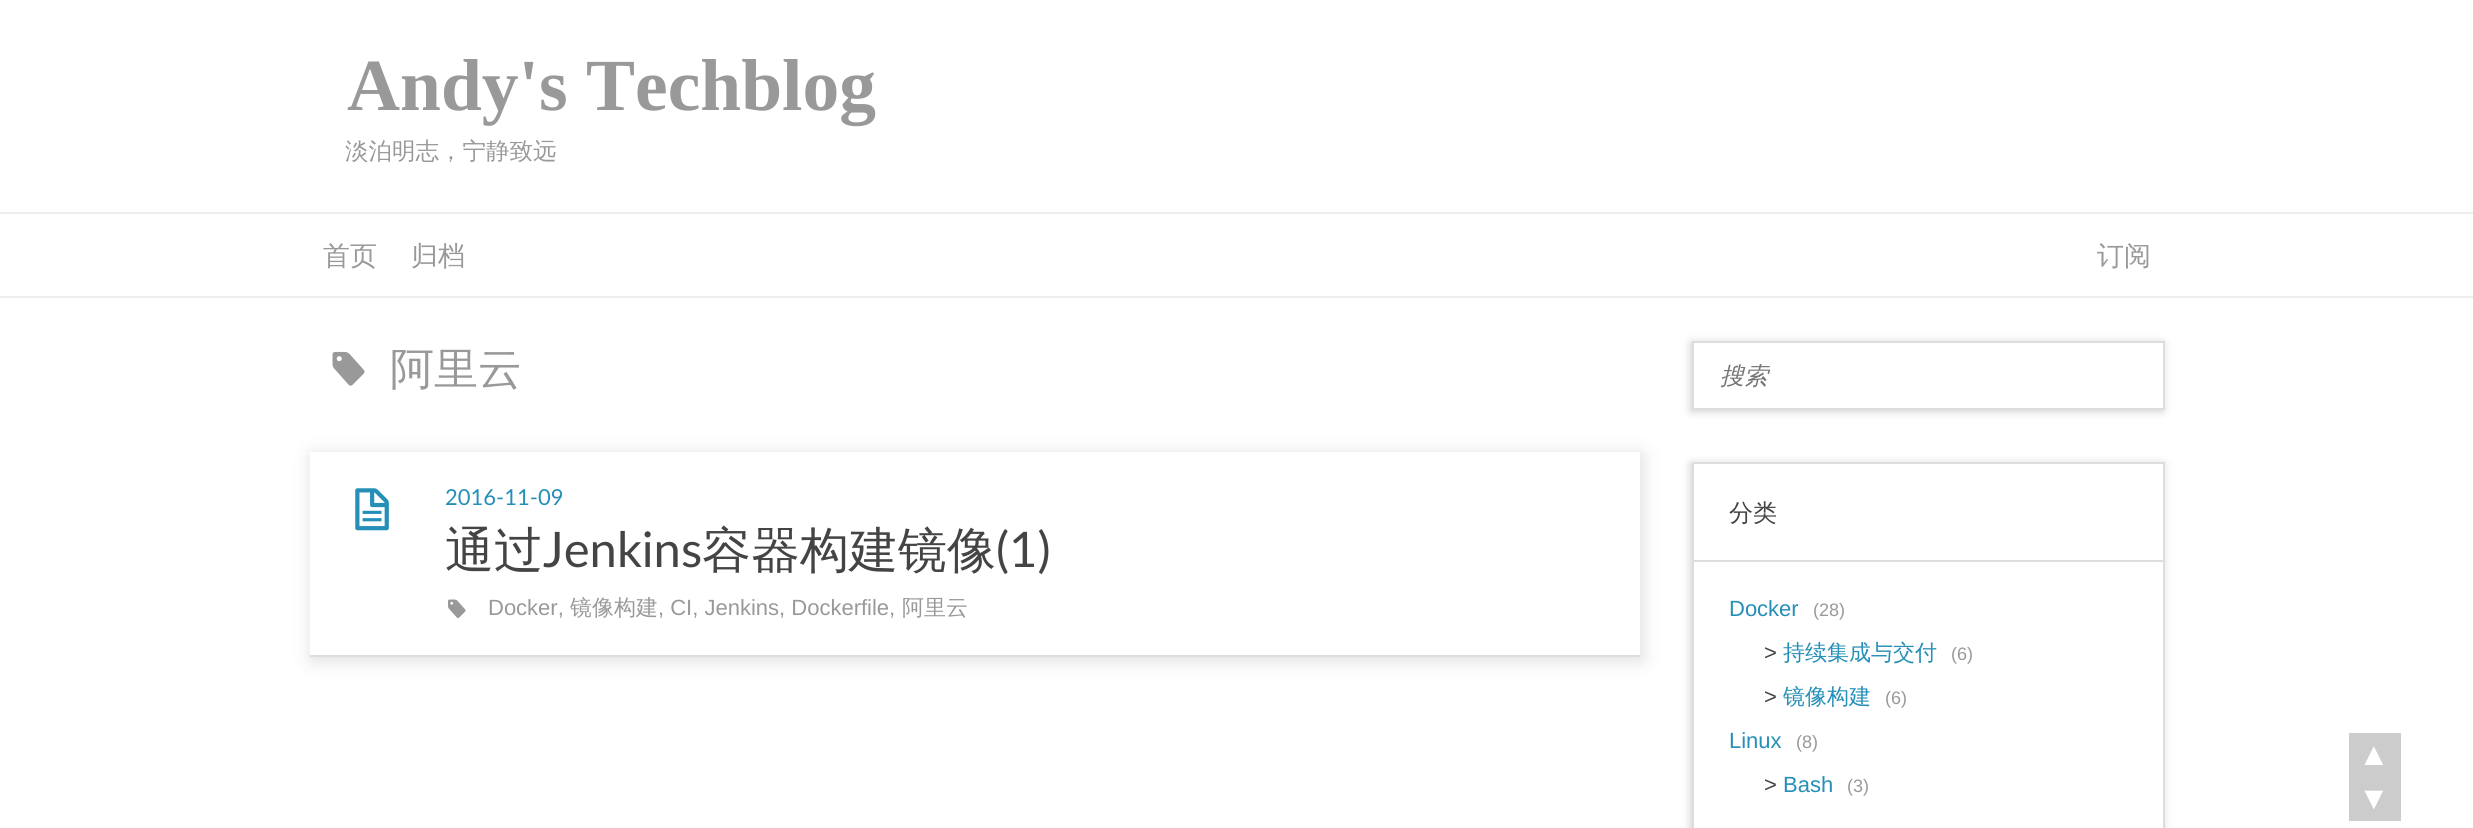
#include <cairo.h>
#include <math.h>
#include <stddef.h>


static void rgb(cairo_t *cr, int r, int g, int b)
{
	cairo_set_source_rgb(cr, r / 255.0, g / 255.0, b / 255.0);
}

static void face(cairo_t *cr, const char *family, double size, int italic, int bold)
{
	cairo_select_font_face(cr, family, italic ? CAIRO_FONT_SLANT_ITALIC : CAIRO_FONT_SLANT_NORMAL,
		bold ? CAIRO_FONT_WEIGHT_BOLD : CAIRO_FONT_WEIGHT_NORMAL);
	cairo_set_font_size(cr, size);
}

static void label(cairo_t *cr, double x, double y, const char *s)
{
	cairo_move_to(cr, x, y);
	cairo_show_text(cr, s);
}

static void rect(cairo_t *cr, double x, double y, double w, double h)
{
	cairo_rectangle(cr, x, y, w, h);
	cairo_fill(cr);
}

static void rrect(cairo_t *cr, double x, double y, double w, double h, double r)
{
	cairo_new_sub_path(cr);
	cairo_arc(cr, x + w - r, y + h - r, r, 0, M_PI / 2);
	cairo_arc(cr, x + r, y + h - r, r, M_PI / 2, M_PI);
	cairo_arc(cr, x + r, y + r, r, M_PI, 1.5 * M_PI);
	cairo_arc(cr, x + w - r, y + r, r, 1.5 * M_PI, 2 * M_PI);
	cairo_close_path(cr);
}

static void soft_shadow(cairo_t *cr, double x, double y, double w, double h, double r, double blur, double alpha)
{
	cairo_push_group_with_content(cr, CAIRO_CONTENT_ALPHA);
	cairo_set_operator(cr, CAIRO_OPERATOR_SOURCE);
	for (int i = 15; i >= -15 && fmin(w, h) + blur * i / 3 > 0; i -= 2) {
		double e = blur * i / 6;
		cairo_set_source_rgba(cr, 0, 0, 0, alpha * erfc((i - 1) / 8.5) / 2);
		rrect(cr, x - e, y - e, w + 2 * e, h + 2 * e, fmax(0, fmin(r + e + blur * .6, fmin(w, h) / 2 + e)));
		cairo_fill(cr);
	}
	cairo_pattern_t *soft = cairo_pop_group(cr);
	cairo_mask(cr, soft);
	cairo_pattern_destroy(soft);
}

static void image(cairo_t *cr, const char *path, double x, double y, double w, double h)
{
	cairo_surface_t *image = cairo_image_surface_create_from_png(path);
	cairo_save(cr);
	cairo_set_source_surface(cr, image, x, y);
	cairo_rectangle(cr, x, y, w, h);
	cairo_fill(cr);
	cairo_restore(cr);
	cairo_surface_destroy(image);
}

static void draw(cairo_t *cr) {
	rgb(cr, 255, 255, 255);
	cairo_paint(cr);
	face(cr, "Liberation Serif", 73.5, 0, 1);
	rgb(cr, 153, 153, 153);
	label(cr, 347, 110, "Andy's Techblog");
	face(cr, "WenQuanYi Zen Hei Medium", 23.5, 0, 0);
	label(cr, 345, 159, "淡泊明志，宁静致远");
	rgb(cr, 238, 238, 238);
	rect(cr, 0, 212, 2473, 2);
	rect(cr, 0, 296, 2473, 2);
	face(cr, "WenQuanYi Zen Hei Medium", 27, 0, 0);
	rgb(cr, 153, 153, 153);
	label(cr, 323, 265, "首页");
	label(cr, 411, 265, "归档");
	label(cr, 2097, 265, "订阅");
	image(cr, "image0.png", 332, 351, 33, 35);
	face(cr, "WenQuanYi Zen Hei Medium", 44, 0, 0);
	label(cr, 390, 384, "阿里云");
	cairo_save(cr);
	cairo_set_fill_rule(cr, CAIRO_FILL_RULE_EVEN_ODD);
	cairo_new_path(cr);
	cairo_move_to(cr, 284, 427);
	cairo_line_to(cr, 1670, 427);
	cairo_line_to(cr, 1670, 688);
	cairo_line_to(cr, 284, 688);
	cairo_close_path(cr);
	cairo_move_to(cr, 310, 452);
	cairo_line_to(cr, 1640, 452);
	cairo_line_to(cr, 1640, 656);
	cairo_line_to(cr, 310, 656);
	cairo_close_path(cr);
	cairo_clip(cr);
	rgb(cr, 221, 221, 221);
	soft_shadow(cr, 312, 455, 1330, 205, 0, 9, 1);
	cairo_restore(cr);
	rgb(cr, 221, 221, 221);
	rect(cr, 310, 655, 1330, 2);
	rgb(cr, 255, 255, 255);
	rect(cr, 1639, 455, 1, 166);
	image(cr, "image1.png", 355, 488, 34, 43);
	face(cr, "Lato", 22, 0, 0);
	rgb(cr, 37, 143, 184);
	label(cr, 445, 505, "2016-11-09");
	face(cr, "WenQuanYi Zen Hei Medium", 49, 0, 0);
	rgb(cr, 68, 68, 68);
	label(cr, 445, 567, "通过");
	face(cr, "Lato", 49, 0, 0);
	label(cr, 543, 567, "Jenkins");
	face(cr, "WenQuanYi Zen Hei Medium", 49, 0, 0);
	label(cr, 702, 567, "容器构建镜像");
	face(cr, "Lato", 49, 0, 0);
	label(cr, 996, 567, "(1)");
	image(cr, "image2.png", 448, 599, 18, 20);
	face(cr, "Liberation Sans", 22, 0, 0);
	rgb(cr, 153, 153, 153);
	label(cr, 488, 615, "Docker,");
	face(cr, "WenQuanYi Zen Hei Medium", 22, 0, 0);
	label(cr, 570, 615, "镜像构建");
	face(cr, "Liberation Sans", 22, 0, 0);
	label(cr, 658, 615, ", CI, Jenkins, Dockerfile,");
	face(cr, "WenQuanYi Zen Hei Medium", 22, 0, 0);
	label(cr, 902, 615, "阿里云");
	rgb(cr, 204, 204, 204);
	soft_shadow(cr, 1691, 343, 472, 68, 0, 4.5, 1);
	rgb(cr, 255, 255, 255);
	cairo_rectangle(cr, 1693, 342, 471, 67);
	cairo_fill_preserve(cr);
	rgb(cr, 221, 221, 221);
	cairo_stroke(cr);
	face(cr, "WenQuanYi Zen Hei Medium", 24, 1, 0);
	rgb(cr, 117, 117, 117);
	label(cr, 1720, 384, "搜索");
	rgb(cr, 204, 204, 204);
	soft_shadow(cr, 1691, 464, 472, 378, 0, 4.5, 1);
	rgb(cr, 255, 255, 255);
	cairo_rectangle(cr, 1693, 463, 471, 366);
	cairo_fill_preserve(cr);
	rgb(cr, 221, 221, 221);
	cairo_stroke(cr);
	rect(cr, 1694, 560, 469, 2);
	face(cr, "WenQuanYi Zen Hei Medium", 24, 0, 0);
	rgb(cr, 68, 68, 68);
	label(cr, 1729, 521, "分类");
	face(cr, "Liberation Sans", 22, 0, 0);
	rgb(cr, 37, 143, 184);
	label(cr, 1729, 616, "Docker");
	face(cr, "Liberation Sans", 18, 0, 0);
	rgb(cr, 153, 153, 153);
	label(cr, 1813, 616, "(28)");
	face(cr, "Liberation Sans", 22, 0, 0);
	rgb(cr, 68, 68, 68);
	label(cr, 1764, 660, ">");
	face(cr, "WenQuanYi Zen Hei Medium", 22, 0, 0);
	rgb(cr, 37, 143, 184);
	label(cr, 1783, 660, "持续集成与交付");
	face(cr, "Liberation Sans", 18, 0, 0);
	rgb(cr, 153, 153, 153);
	label(cr, 1951, 660, "(6)");
	face(cr, "Liberation Sans", 22, 0, 0);
	rgb(cr, 68, 68, 68);
	label(cr, 1764, 704, ">");
	face(cr, "WenQuanYi Zen Hei Medium", 22, 0, 0);
	rgb(cr, 37, 143, 184);
	label(cr, 1783, 704, "镜像构建");
	face(cr, "Liberation Sans", 18, 0, 0);
	rgb(cr, 153, 153, 153);
	label(cr, 1885, 704, "(6)");
	face(cr, "Liberation Sans", 22, 0, 0);
	rgb(cr, 37, 143, 184);
	label(cr, 1729, 748, "Linux");
	face(cr, "Liberation Sans", 18, 0, 0);
	rgb(cr, 153, 153, 153);
	label(cr, 1796, 748, "(8)");
	face(cr, "Liberation Sans", 22, 0, 0);
	rgb(cr, 68, 68, 68);
	label(cr, 1764, 792, ">");
	rgb(cr, 37, 143, 184);
	label(cr, 1783, 792, "Bash");
	face(cr, "Liberation Sans", 18, 0, 0);
	rgb(cr, 153, 153, 153);
	label(cr, 1847, 792, "(3)");
	rgb(cr, 204, 204, 204);
	rect(cr, 2349, 733, 52, 88);
	face(cr, "Liberation Sans", 32, 0, 0);
	rgb(cr, 255, 255, 255);
	label(cr, 2358, 765, "▲");
	label(cr, 2358, 809, "▼");
}

int main(void) {
	cairo_surface_t *surface = cairo_image_surface_create(CAIRO_FORMAT_RGB24, 2473, 828);
	cairo_t *cr = cairo_create(surface);
	cairo_font_options_t *options = cairo_font_options_create();
	cairo_font_options_set_hint_metrics(options, CAIRO_HINT_METRICS_OFF);
	cairo_font_options_set_hint_style(options, CAIRO_HINT_STYLE_NONE);
	cairo_set_font_options(cr, options);
	cairo_set_miter_limit(cr, 4);
	draw(cr);
	cairo_surface_write_to_png(surface, "render.png");
	cairo_font_options_destroy(options);
	cairo_destroy(cr);
	cairo_surface_destroy(surface);
	return 0;
}
